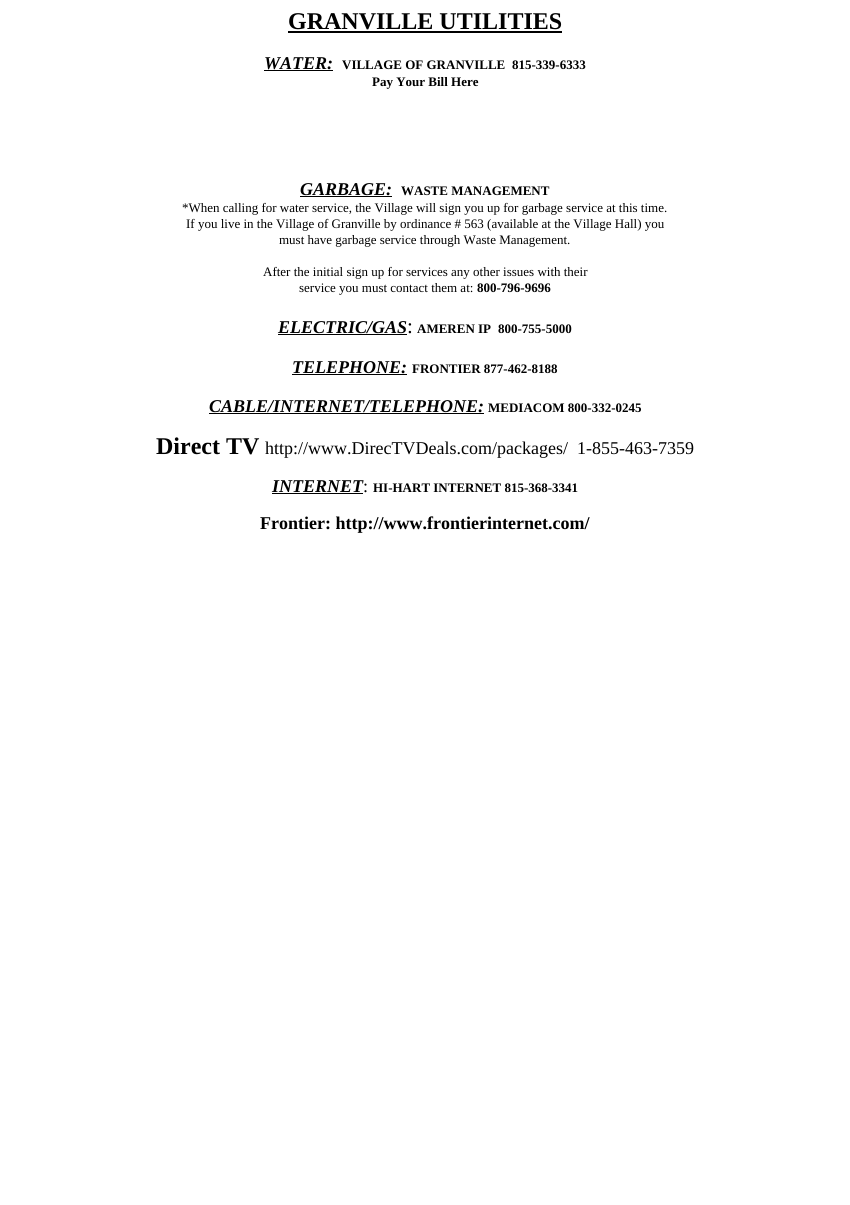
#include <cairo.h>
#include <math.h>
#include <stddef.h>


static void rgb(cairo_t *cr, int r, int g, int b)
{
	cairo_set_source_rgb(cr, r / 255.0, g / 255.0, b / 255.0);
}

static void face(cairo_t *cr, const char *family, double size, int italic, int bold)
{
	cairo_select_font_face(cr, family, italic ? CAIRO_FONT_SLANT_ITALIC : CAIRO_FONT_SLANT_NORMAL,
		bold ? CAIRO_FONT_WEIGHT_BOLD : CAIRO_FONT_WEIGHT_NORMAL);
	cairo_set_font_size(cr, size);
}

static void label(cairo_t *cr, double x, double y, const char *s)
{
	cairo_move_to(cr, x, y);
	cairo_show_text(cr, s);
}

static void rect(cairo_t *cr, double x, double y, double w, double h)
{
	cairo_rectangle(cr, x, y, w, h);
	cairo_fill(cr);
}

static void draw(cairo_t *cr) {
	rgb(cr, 255, 255, 255);
	cairo_paint(cr);
	face(cr, "Liberation Serif", 24, 0, 1);
	rgb(cr, 0, 0, 0);
	label(cr, 288, 29, "GRANVILLE UTILITIES");
	rect(cr, 288, 31, 274, 2);
	face(cr, "Liberation Serif", 18, 1, 1);
	label(cr, 264, 69, "WATER:");
	rect(cr, 264, 70, 69, 1);
	face(cr, "Liberation Serif", 13, 0, 1);
	label(cr, 342, 69, "VILLAGE OF GRANVILLE");
	label(cr, 512, 69, "815-339-6333");
	label(cr, 372, 86, "Pay Your Bill Here");
	face(cr, "Liberation Serif", 18, 1, 1);
	label(cr, 300, 195, "GARBAGE:");
	rect(cr, 300, 196, 92, 1);
	face(cr, "Liberation Serif", 13, 0, 1);
	label(cr, 401, 195, "WASTE MANAGEMENT");
	face(cr, "Liberation Serif", 13, 0, 0);
	label(cr, 182, 212, "*When calling for water service, the Village will sign you up for garbage service at this time.");
	label(cr, 186, 228, "If you live in the Village of Granville by ordinance # 563 (available at the Village Hall) you");
	label(cr, 279, 244, "must have garbage service through Waste Management.");
	label(cr, 263, 276, "After the initial sign up for services any other issues with their");
	label(cr, 299, 292, "service you must contact them at:");
	face(cr, "Liberation Serif", 13, 0, 1);
	label(cr, 477, 292, "800-796-9696");
	face(cr, "Liberation Serif", 18, 1, 1);
	label(cr, 278, 333, "ELECTRIC/GAS");
	rect(cr, 278, 334, 129, 1);
	face(cr, "Liberation Serif", 21, 0, 0);
	label(cr, 407, 333, ":");
	face(cr, "Liberation Serif", 13, 0, 1);
	label(cr, 417, 333, "AMEREN IP");
	label(cr, 498, 333, "800-755-5000");
	face(cr, "Liberation Serif", 18, 1, 1);
	label(cr, 292, 373, "TELEPHONE:");
	rect(cr, 292, 374, 115, 1);
	face(cr, "Liberation Serif", 13, 0, 1);
	label(cr, 412, 373, "FRONTIER 877-462-8188");
	face(cr, "Liberation Serif", 18, 1, 1);
	label(cr, 209, 412, "CABLE/INTERNET/TELEPHONE:");
	rect(cr, 209, 413, 275, 1);
	face(cr, "Liberation Serif", 13, 0, 1);
	label(cr, 488, 412, "MEDIACOM 800-332-0245");
	face(cr, "Liberation Serif", 24, 0, 1);
	label(cr, 156, 454, "Direct TV");
	face(cr, "Liberation Serif", 18, 0, 0);
	label(cr, 265, 454, "http://www.DirecTVDeals.com/packages/  1-855-463-7359");
	face(cr, "Liberation Serif", 18, 1, 1);
	label(cr, 272, 492, "INTERNET");
	rect(cr, 272, 493, 91, 1);
	face(cr, "Liberation Serif", 18, 0, 0);
	label(cr, 363, 492, ":");
	face(cr, "Liberation Serif", 13, 0, 1);
	label(cr, 373, 492, "HI-HART INTERNET 815-368-3341");
	face(cr, "Liberation Serif", 18, 0, 1);
	label(cr, 260, 529, "Frontier: http://www.frontierinternet.com/");
}

int main(void) {
	cairo_surface_t *surface = cairo_image_surface_create(CAIRO_FORMAT_RGB24, 850, 1205);
	cairo_t *cr = cairo_create(surface);
	cairo_font_options_t *options = cairo_font_options_create();
	cairo_font_options_set_hint_metrics(options, CAIRO_HINT_METRICS_OFF);
	cairo_font_options_set_hint_style(options, CAIRO_HINT_STYLE_NONE);
	cairo_set_font_options(cr, options);
	cairo_set_miter_limit(cr, 4);
	draw(cr);
	cairo_surface_write_to_png(surface, "render.png");
	cairo_font_options_destroy(options);
	cairo_destroy(cr);
	cairo_surface_destroy(surface);
	return 0;
}
